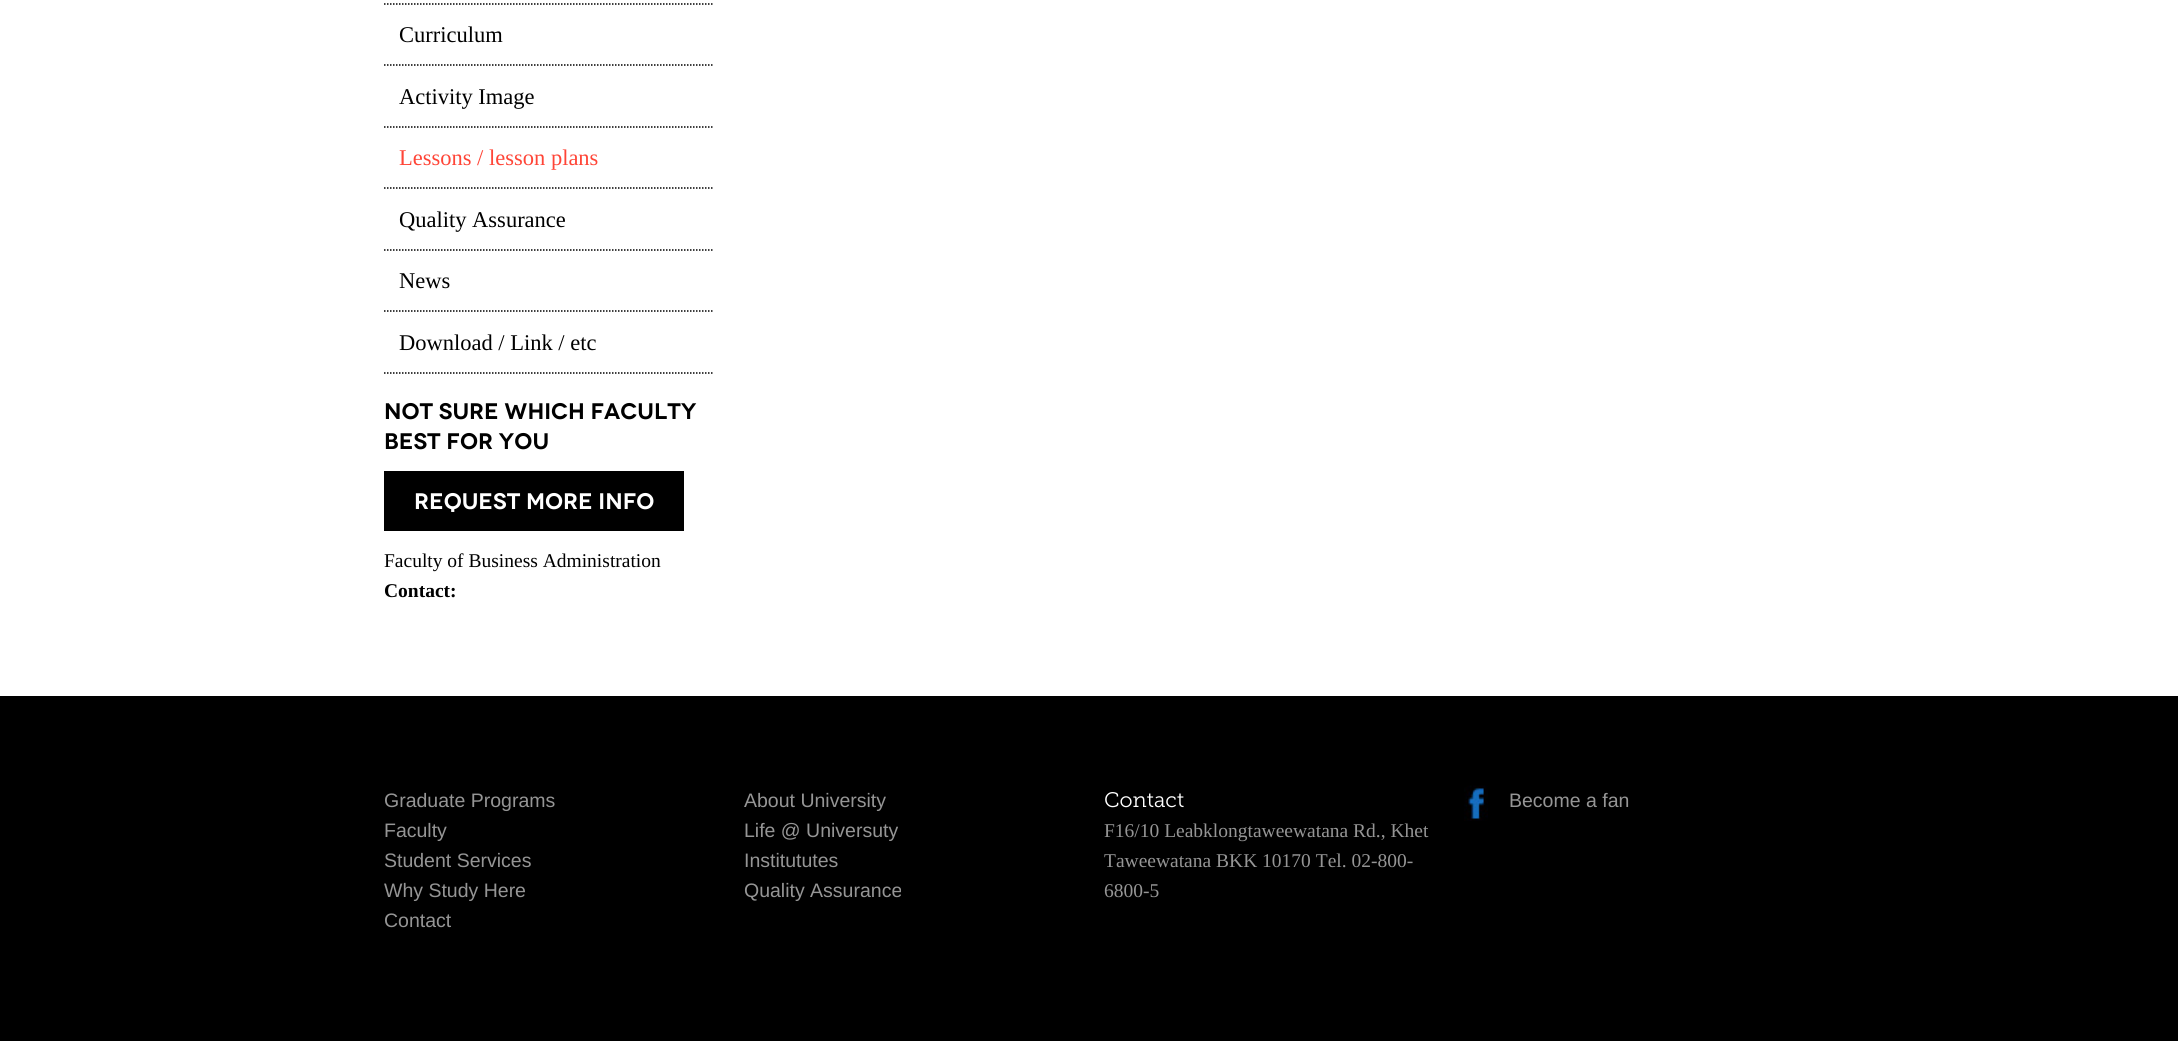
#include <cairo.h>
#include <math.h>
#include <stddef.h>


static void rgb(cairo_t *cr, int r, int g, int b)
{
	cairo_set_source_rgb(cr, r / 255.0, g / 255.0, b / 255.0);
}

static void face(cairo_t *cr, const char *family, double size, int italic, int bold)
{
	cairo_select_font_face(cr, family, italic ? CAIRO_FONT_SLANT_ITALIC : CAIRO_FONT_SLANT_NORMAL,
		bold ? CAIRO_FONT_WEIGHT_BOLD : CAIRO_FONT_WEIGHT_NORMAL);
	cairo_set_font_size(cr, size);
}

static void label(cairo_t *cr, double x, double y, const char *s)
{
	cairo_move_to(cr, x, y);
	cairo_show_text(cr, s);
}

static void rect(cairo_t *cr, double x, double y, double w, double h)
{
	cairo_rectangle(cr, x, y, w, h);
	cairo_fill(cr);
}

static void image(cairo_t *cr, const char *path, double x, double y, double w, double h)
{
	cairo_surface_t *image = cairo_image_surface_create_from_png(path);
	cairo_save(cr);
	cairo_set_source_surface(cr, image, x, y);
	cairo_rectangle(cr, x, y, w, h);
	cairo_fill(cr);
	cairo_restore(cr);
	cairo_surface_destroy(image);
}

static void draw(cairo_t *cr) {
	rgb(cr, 255, 255, 255);
	cairo_paint(cr);
	cairo_new_path(cr);
	cairo_move_to(cr, 384, 4);
	cairo_line_to(cr, 714, 4);
	rgb(cr, 0, 0, 0);
	cairo_set_line_width(cr, 1.5);
	cairo_set_dash(cr, (double[]){1.5, 1.5}, 2, 0);
	cairo_stroke(cr);
	cairo_new_path(cr);
	cairo_move_to(cr, 384, 65);
	cairo_line_to(cr, 714, 65);
	cairo_stroke(cr);
	face(cr, "Liberation Serif", 22.5, 0, 0);
	label(cr, 399, 42, "Curriculum");
	cairo_new_path(cr);
	cairo_move_to(cr, 384, 127);
	cairo_line_to(cr, 714, 127);
	cairo_stroke(cr);
	label(cr, 399, 104, "Activity Image");
	cairo_new_path(cr);
	cairo_move_to(cr, 384, 188);
	cairo_line_to(cr, 714, 188);
	cairo_stroke(cr);
	rgb(cr, 255, 69, 55);
	label(cr, 399, 165, "Lessons / lesson plans");
	cairo_new_path(cr);
	cairo_move_to(cr, 384, 250);
	cairo_line_to(cr, 714, 250);
	rgb(cr, 0, 0, 0);
	cairo_stroke(cr);
	label(cr, 399, 227, "Quality Assurance");
	cairo_new_path(cr);
	cairo_move_to(cr, 384, 311);
	cairo_line_to(cr, 714, 311);
	cairo_stroke(cr);
	label(cr, 399, 288, "News");
	cairo_new_path(cr);
	cairo_move_to(cr, 384, 373);
	cairo_line_to(cr, 714, 373);
	cairo_stroke(cr);
	label(cr, 399, 350, "Download / Link / etc");
	face(cr, "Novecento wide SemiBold", 22.5, 0, 0);
	label(cr, 384, 419, "Not Sure which Faculty");
	label(cr, 384, 449, "best for you");
	rect(cr, 384, 471, 300, 60);
	rgb(cr, 255, 255, 255);
	label(cr, 414, 509, "request more info");
	face(cr, "Liberation Serif", 19.5, 0, 0);
	rgb(cr, 0, 0, 0);
	label(cr, 384, 567, "Faculty of Business Administration");
	face(cr, "Liberation Serif", 19.5, 0, 1);
	label(cr, 384, 597, "Contact:");
	rect(cr, 0, 696, 2178, 345);
	face(cr, "Liberation Sans", 19.5, 0, 0);
	rgb(cr, 149, 149, 149);
	label(cr, 384, 807, "Graduate Programs");
	label(cr, 384, 837, "Faculty");
	label(cr, 384, 867, "Student Services");
	label(cr, 384, 897, "Why Study Here");
	label(cr, 384, 927, "Contact");
	label(cr, 744, 807, "About University");
	label(cr, 744, 837, "Life @ Universuty");
	label(cr, 744, 867, "Institututes");
	label(cr, 744, 897, "Quality Assurance");
	face(cr, "Museo Slab", 21, 0, 0);
	rgb(cr, 255, 255, 255);
	label(cr, 1104, 807, "Contact");
	face(cr, "Liberation Serif", 19.5, 0, 0);
	rgb(cr, 149, 149, 149);
	label(cr, 1104, 837, "F16/10 Leabklongtaweewatana Rd., Khet");
	label(cr, 1104, 867, "Taweewatana BKK 10170 Tel. 02-800-");
	label(cr, 1104, 897, "6800-5");
	image(cr, "image0.png", 1464, 785, 24, 36);
	face(cr, "Liberation Sans", 19.5, 0, 0);
	label(cr, 1509, 807, "Become a fan");
}

int main(void) {
	cairo_surface_t *surface = cairo_image_surface_create(CAIRO_FORMAT_RGB24, 2178, 1041);
	cairo_t *cr = cairo_create(surface);
	cairo_font_options_t *options = cairo_font_options_create();
	cairo_font_options_set_hint_metrics(options, CAIRO_HINT_METRICS_OFF);
	cairo_font_options_set_hint_style(options, CAIRO_HINT_STYLE_NONE);
	cairo_set_font_options(cr, options);
	cairo_set_miter_limit(cr, 4);
	draw(cr);
	cairo_surface_write_to_png(surface, "render.png");
	cairo_font_options_destroy(options);
	cairo_destroy(cr);
	cairo_surface_destroy(surface);
	return 0;
}
